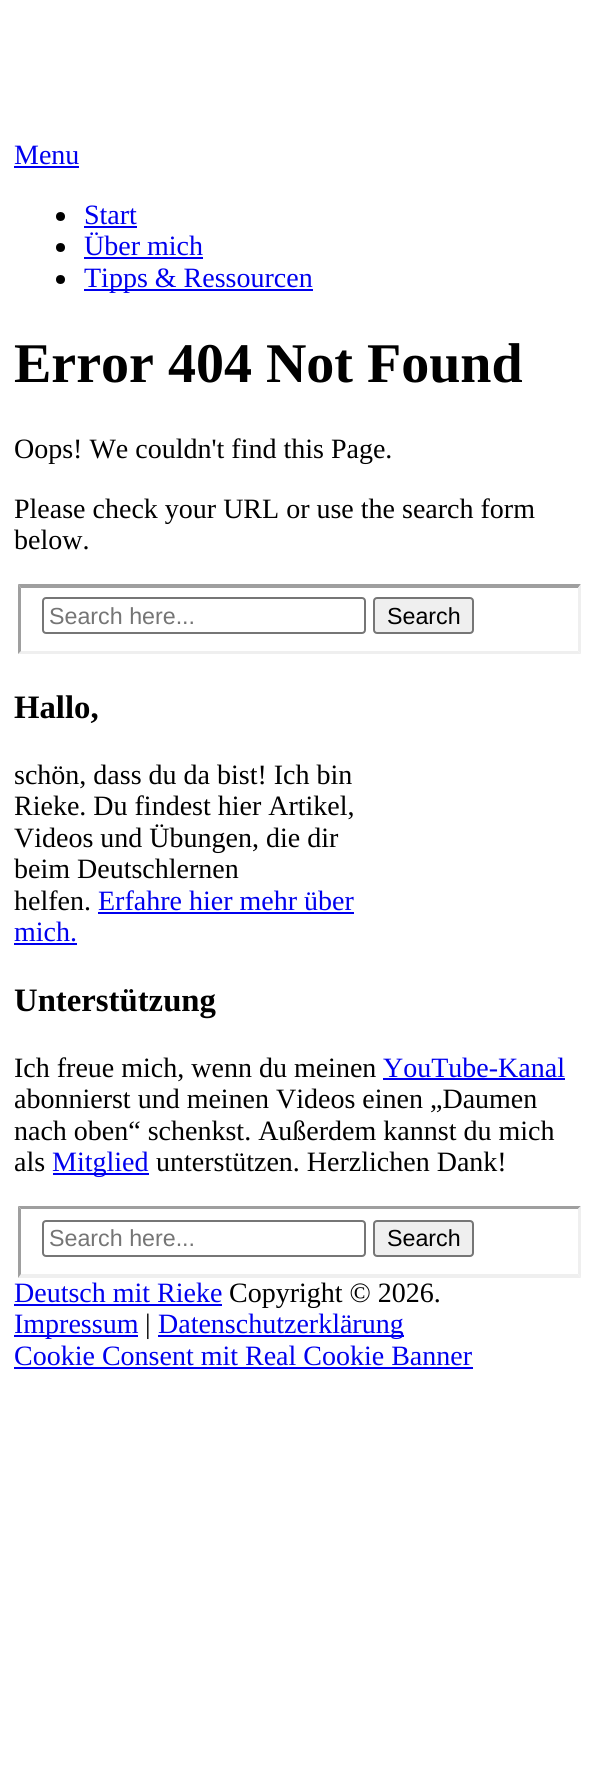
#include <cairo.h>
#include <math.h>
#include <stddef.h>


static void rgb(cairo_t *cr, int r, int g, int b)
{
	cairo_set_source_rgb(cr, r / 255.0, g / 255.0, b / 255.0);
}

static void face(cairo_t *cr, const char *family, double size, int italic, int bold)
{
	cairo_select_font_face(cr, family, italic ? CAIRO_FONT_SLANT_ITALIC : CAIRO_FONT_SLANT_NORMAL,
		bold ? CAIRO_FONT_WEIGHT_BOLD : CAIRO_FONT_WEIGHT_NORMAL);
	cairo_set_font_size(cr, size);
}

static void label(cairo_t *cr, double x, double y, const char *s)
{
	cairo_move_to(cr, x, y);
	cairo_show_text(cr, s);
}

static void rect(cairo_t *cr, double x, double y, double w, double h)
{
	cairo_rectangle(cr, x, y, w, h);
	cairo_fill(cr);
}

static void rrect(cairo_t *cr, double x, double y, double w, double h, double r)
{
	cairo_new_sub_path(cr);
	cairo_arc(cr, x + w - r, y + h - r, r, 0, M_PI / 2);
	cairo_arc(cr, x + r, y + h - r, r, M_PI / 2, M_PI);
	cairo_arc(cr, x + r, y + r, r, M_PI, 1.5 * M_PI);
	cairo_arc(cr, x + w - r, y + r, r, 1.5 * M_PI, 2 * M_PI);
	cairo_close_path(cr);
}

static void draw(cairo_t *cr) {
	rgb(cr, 255, 255, 255);
	cairo_paint(cr);
	face(cr, "Liberation Serif", 28, 0, 0);
	rgb(cr, 0, 0, 238);
	label(cr, 14, 164, "Menu");
	rect(cr, 14, 166, 65, 2);
	rgb(cr, 0, 0, 0);
	cairo_new_path(cr);
	cairo_arc(cr, 60.5, 216.5, 4.5, 0, 2 * M_PI);
	cairo_fill(cr);
	rgb(cr, 0, 0, 238);
	label(cr, 84, 224, "Start");
	rect(cr, 84, 226, 53, 2);
	rgb(cr, 0, 0, 0);
	cairo_new_path(cr);
	cairo_arc(cr, 60.5, 247.5, 4.5, 0, 2 * M_PI);
	cairo_fill(cr);
	rgb(cr, 0, 0, 238);
	label(cr, 84, 255, "Über mich");
	rect(cr, 84, 257, 119, 2);
	rgb(cr, 0, 0, 0);
	cairo_new_path(cr);
	cairo_arc(cr, 60.5, 279.5, 4.5, 0, 2 * M_PI);
	cairo_fill(cr);
	rgb(cr, 0, 0, 238);
	rect(cr, 84, 289, 229, 2);
	label(cr, 84, 287, "Tipps & Ressourcen");
	face(cr, "Liberation Serif", 56, 0, 1);
	rgb(cr, 0, 0, 0);
	label(cr, 14, 382, "Error 404 Not Found");
	face(cr, "Liberation Serif", 28, 0, 0);
	label(cr, 14, 458, "Oops! We couldn't find this Page.");
	label(cr, 14, 518, "Please check your URL or use the search form");
	label(cr, 14, 549, "below.");
	rgb(cr, 159, 159, 159);
	cairo_new_path(cr);
	cairo_move_to(cr, 18, 584);
	cairo_line_to(cr, 581, 584);
	cairo_line_to(cr, 578, 588);
	cairo_line_to(cr, 21, 588);
	cairo_close_path(cr);
	cairo_fill(cr);
	rgb(cr, 239, 239, 239);
	cairo_new_path(cr);
	cairo_move_to(cr, 581, 584);
	cairo_line_to(cr, 581, 654);
	cairo_line_to(cr, 578, 651);
	cairo_line_to(cr, 578, 588);
	cairo_close_path(cr);
	cairo_fill(cr);
	cairo_new_path(cr);
	cairo_move_to(cr, 581, 654);
	cairo_line_to(cr, 18, 654);
	cairo_line_to(cr, 21, 651);
	cairo_line_to(cr, 578, 651);
	cairo_close_path(cr);
	cairo_fill(cr);
	rgb(cr, 159, 159, 159);
	cairo_new_path(cr);
	cairo_move_to(cr, 18, 654);
	cairo_line_to(cr, 18, 584);
	cairo_line_to(cr, 21, 588);
	cairo_line_to(cr, 21, 651);
	cairo_close_path(cr);
	cairo_fill(cr);
	rrect(cr, 43, 598, 322, 35, 3);
	rgb(cr, 118, 118, 118);
	cairo_stroke(cr);
	face(cr, "Liberation Sans", 23.25, 0, 0);
	rgb(cr, 117, 117, 117);
	label(cr, 49, 624, "Search here...");
	rgb(cr, 239, 239, 239);
	rrect(cr, 374, 598, 99, 35, 3);
	cairo_fill_preserve(cr);
	rgb(cr, 118, 118, 118);
	cairo_stroke(cr);
	rgb(cr, 0, 0, 0);
	label(cr, 387, 624, "Search");
	face(cr, "Liberation Serif", 32.75, 0, 1);
	label(cr, 14, 718, "Hallo,");
	face(cr, "Liberation Serif", 28, 0, 0);
	label(cr, 14, 784, "schön, dass du da bist! Ich bin");
	label(cr, 14, 815, "Rieke. Du findest hier Artikel,");
	label(cr, 14, 847, "Videos und Übungen, die dir");
	label(cr, 14, 878, "beim Deutschlernen");
	label(cr, 14, 910, "helfen.");
	rgb(cr, 0, 0, 238);
	label(cr, 98, 910, "Erfahre hier mehr über");
	rect(cr, 98, 912, 256, 2);
	label(cr, 14, 941, "mich.");
	rect(cr, 14, 943, 63, 2);
	face(cr, "Liberation Serif", 32.75, 0, 1);
	rgb(cr, 0, 0, 0);
	label(cr, 14, 1011, "Unterstützung");
	face(cr, "Liberation Serif", 28, 0, 0);
	label(cr, 14, 1077, "Ich freue mich, wenn du meinen");
	rgb(cr, 0, 0, 238);
	label(cr, 383, 1077, "YouTube-Kanal");
	rect(cr, 383, 1078, 182, 2);
	rgb(cr, 0, 0, 0);
	label(cr, 14, 1108, "abonnierst und meinen Videos einen „Daumen");
	label(cr, 14, 1140, "nach oben“ schenkst. Außerdem kannst du mich");
	label(cr, 14, 1171, "als");
	rgb(cr, 0, 0, 238);
	rect(cr, 53, 1173, 96, 2);
	label(cr, 52, 1171, "Mitglied");
	rgb(cr, 0, 0, 0);
	label(cr, 156, 1171, "unterstützen. Herzlichen Dank!");
	rgb(cr, 159, 159, 159);
	cairo_new_path(cr);
	cairo_move_to(cr, 18, 1206);
	cairo_line_to(cr, 581, 1206);
	cairo_line_to(cr, 578, 1209);
	cairo_line_to(cr, 21, 1209);
	cairo_close_path(cr);
	cairo_fill(cr);
	rgb(cr, 239, 239, 239);
	cairo_new_path(cr);
	cairo_move_to(cr, 581, 1206);
	cairo_line_to(cr, 581, 1278);
	cairo_line_to(cr, 578, 1274);
	cairo_line_to(cr, 578, 1209);
	cairo_close_path(cr);
	cairo_fill(cr);
	cairo_new_path(cr);
	cairo_move_to(cr, 581, 1278);
	cairo_line_to(cr, 18, 1278);
	cairo_line_to(cr, 21, 1274);
	cairo_line_to(cr, 578, 1274);
	cairo_close_path(cr);
	cairo_fill(cr);
	rgb(cr, 159, 159, 159);
	cairo_new_path(cr);
	cairo_move_to(cr, 18, 1278);
	cairo_line_to(cr, 18, 1206);
	cairo_line_to(cr, 21, 1209);
	cairo_line_to(cr, 21, 1274);
	cairo_close_path(cr);
	cairo_fill(cr);
	rrect(cr, 43, 1221, 322, 35, 3);
	rgb(cr, 118, 118, 118);
	cairo_stroke(cr);
	face(cr, "Liberation Sans", 23.25, 0, 0);
	rgb(cr, 117, 117, 117);
	label(cr, 49, 1246, "Search here...");
	rgb(cr, 239, 239, 239);
	rrect(cr, 374, 1221, 99, 35, 3);
	cairo_fill_preserve(cr);
	rgb(cr, 118, 118, 118);
	cairo_stroke(cr);
	rgb(cr, 0, 0, 0);
	label(cr, 387, 1246, "Search");
	face(cr, "Liberation Serif", 28, 0, 0);
	rgb(cr, 0, 0, 238);
	label(cr, 14, 1302, "Deutsch mit Rieke");
	rect(cr, 14, 1304, 208, 2);
	rgb(cr, 0, 0, 0);
	label(cr, 229, 1302, "Copyright © 2026.");
	rgb(cr, 0, 0, 238);
	rect(cr, 14, 1335, 124, 2);
	label(cr, 14, 1333, "Impressum");
	rgb(cr, 0, 0, 0);
	label(cr, 145, 1333, "|");
	rgb(cr, 0, 0, 238);
	rect(cr, 158, 1335, 246, 2);
	label(cr, 158, 1333, "Datenschutzerklärung");
	label(cr, 14, 1365, "Cookie Consent mit Real Cookie Banner");
	rect(cr, 14, 1367, 459, 2);
}

int main(void) {
	cairo_surface_t *surface = cairo_image_surface_create(CAIRO_FORMAT_RGB24, 598, 1791);
	cairo_t *cr = cairo_create(surface);
	cairo_font_options_t *options = cairo_font_options_create();
	cairo_font_options_set_hint_metrics(options, CAIRO_HINT_METRICS_OFF);
	cairo_font_options_set_hint_style(options, CAIRO_HINT_STYLE_NONE);
	cairo_set_font_options(cr, options);
	cairo_set_miter_limit(cr, 4);
	draw(cr);
	cairo_surface_write_to_png(surface, "render.png");
	cairo_font_options_destroy(options);
	cairo_destroy(cr);
	cairo_surface_destroy(surface);
	return 0;
}
